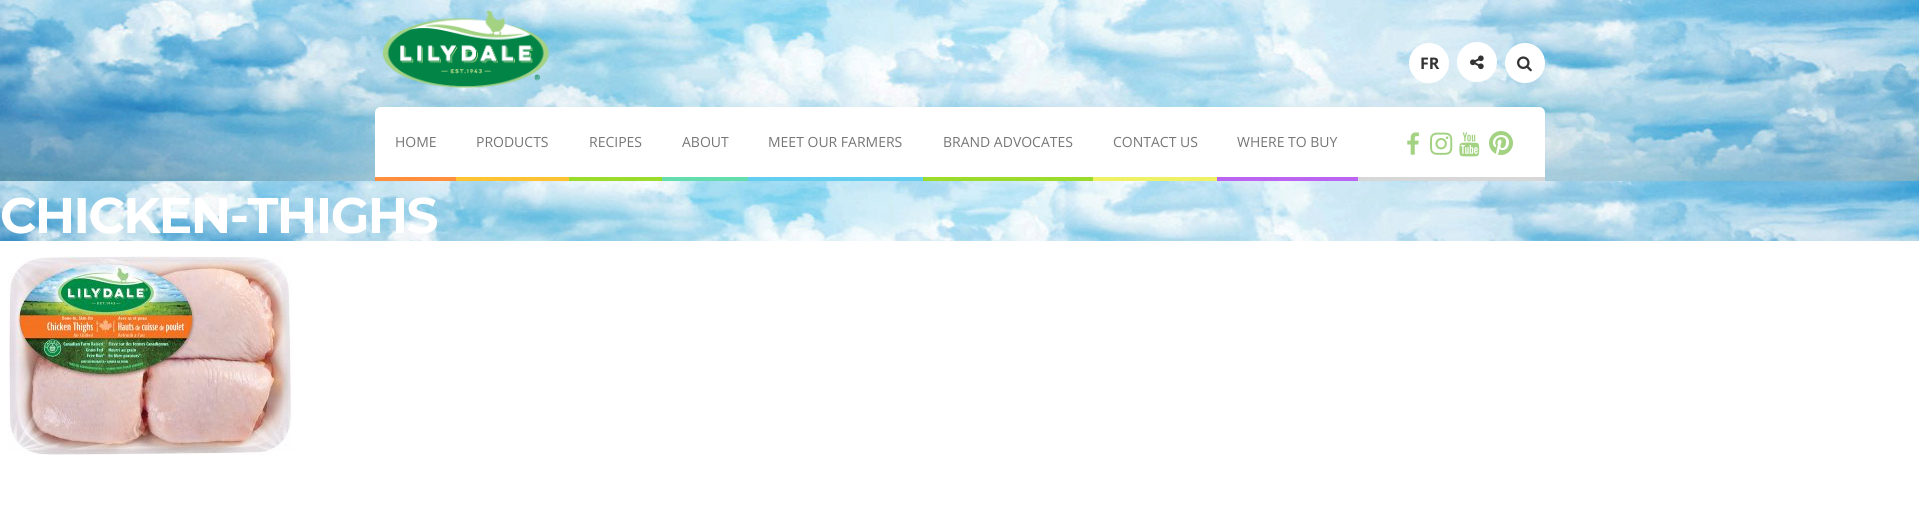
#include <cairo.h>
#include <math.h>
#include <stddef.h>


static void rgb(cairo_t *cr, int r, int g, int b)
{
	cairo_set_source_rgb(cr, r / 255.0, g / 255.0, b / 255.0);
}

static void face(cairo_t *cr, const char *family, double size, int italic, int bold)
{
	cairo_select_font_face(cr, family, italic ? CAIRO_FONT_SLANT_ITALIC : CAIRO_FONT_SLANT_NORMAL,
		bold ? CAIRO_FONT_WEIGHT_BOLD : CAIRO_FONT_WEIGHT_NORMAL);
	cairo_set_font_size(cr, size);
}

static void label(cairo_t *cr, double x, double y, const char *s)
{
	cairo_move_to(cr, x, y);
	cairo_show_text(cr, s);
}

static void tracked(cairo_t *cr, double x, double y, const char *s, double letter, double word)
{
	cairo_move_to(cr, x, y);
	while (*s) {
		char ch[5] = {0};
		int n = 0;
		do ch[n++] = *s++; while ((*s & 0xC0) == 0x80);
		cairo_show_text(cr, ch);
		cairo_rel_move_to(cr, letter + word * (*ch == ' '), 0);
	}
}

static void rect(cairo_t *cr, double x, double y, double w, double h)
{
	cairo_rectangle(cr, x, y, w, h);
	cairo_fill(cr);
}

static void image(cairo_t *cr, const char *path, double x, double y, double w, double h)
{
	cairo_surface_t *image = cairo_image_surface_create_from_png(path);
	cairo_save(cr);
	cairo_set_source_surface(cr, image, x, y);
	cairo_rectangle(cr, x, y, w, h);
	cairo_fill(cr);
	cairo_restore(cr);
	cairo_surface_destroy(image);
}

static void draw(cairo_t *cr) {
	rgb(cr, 255, 255, 255);
	cairo_paint(cr);
	image(cr, "image0.png", 0, 0, 1919, 181);
	image(cr, "image1.png", 382, 10, 168, 78);
	rgb(cr, 255, 255, 255);
	cairo_new_path(cr);
	cairo_move_to(cr, 381, 107);
	cairo_line_to(cr, 1539, 107);
	cairo_curve_to(cr, 1542.5, 107, 1545, 109.5, 1545, 113);
	cairo_line_to(cr, 1545, 181);
	cairo_line_to(cr, 375, 181);
	cairo_line_to(cr, 375, 113);
	cairo_curve_to(cr, 375, 109.5, 377.5, 107, 381, 107);
	cairo_close_path(cr);
	cairo_fill(cr);
	rgb(cr, 215, 215, 215);
	rect(cr, 1358, 177, 187, 4);
	rgb(cr, 255, 255, 255);
	cairo_arc(cr, 1429, 63, 20, 0, 2 * M_PI);
	cairo_fill(cr);
	face(cr, "Open Sans", 16, 0, 1);
	rgb(cr, 51, 51, 51);
	label(cr, 1420, 69, "FR");
	rgb(cr, 255, 255, 255);
	cairo_new_path(cr);
	cairo_arc(cr, 1477, 62, 20, 0, 2 * M_PI);
	cairo_fill(cr);
	image(cr, "image2.png", 1470, 55, 14, 15);
	cairo_arc(cr, 1525, 63, 20, 0, 2 * M_PI);
	cairo_fill(cr);
	image(cr, "image3.png", 1517, 56, 15, 16);
	face(cr, "Open Sans", 14, 0, 0);
	rgb(cr, 118, 118, 118);
	label(cr, 395, 147, "HOME");
	rgb(cr, 255, 143, 60);
	rect(cr, 375, 177, 81, 4);
	rgb(cr, 118, 118, 118);
	label(cr, 476, 147, "PRODUCTS");
	rgb(cr, 255, 194, 50);
	rect(cr, 456, 177, 113, 4);
	rgb(cr, 118, 118, 118);
	label(cr, 589, 147, "RECIPES");
	rgb(cr, 155, 219, 43);
	rect(cr, 569, 177, 93, 4);
	rgb(cr, 118, 118, 118);
	label(cr, 682, 147, "ABOUT");
	rgb(cr, 100, 221, 174);
	rect(cr, 662, 177, 86, 4);
	rgb(cr, 118, 118, 118);
	label(cr, 768, 147, "MEET OUR FARMERS");
	rgb(cr, 100, 206, 241);
	rect(cr, 748, 177, 175, 4);
	rgb(cr, 118, 118, 118);
	label(cr, 943, 147, "BRAND ADVOCATES");
	rgb(cr, 155, 219, 43);
	rect(cr, 923, 177, 170, 4);
	rgb(cr, 118, 118, 118);
	label(cr, 1113, 147, "CONTACT US");
	rgb(cr, 239, 241, 100);
	rect(cr, 1093, 177, 124, 4);
	rgb(cr, 118, 118, 118);
	label(cr, 1237, 147, "WHERE TO BUY");
	rgb(cr, 186, 100, 241);
	rect(cr, 1217, 177, 141, 4);
	image(cr, "image4.png", 1407, 132, 12, 23);
	image(cr, "image5.png", 1430, 132, 23, 23);
	image(cr, "image6.png", 1459, 132, 21, 25);
	image(cr, "image7.png", 1489, 131, 24, 24);
	image(cr, "image8.png", 0, 181, 1919, 60);
	face(cr, "Montserrat", 50, 0, 1);
	rgb(cr, 255, 255, 255);
	tracked(cr, 0, 233, "CHICKEN-THIGHS", -1.5, 0);
	image(cr, "image9.png", 8, 256, 285, 199);
}

int main(void) {
	cairo_surface_t *surface = cairo_image_surface_create(CAIRO_FORMAT_RGB24, 1919, 506);
	cairo_t *cr = cairo_create(surface);
	cairo_font_options_t *options = cairo_font_options_create();
	cairo_font_options_set_hint_metrics(options, CAIRO_HINT_METRICS_OFF);
	cairo_font_options_set_hint_style(options, CAIRO_HINT_STYLE_NONE);
	cairo_set_font_options(cr, options);
	cairo_set_miter_limit(cr, 4);
	draw(cr);
	cairo_surface_write_to_png(surface, "render.png");
	cairo_font_options_destroy(options);
	cairo_destroy(cr);
	cairo_surface_destroy(surface);
	return 0;
}
